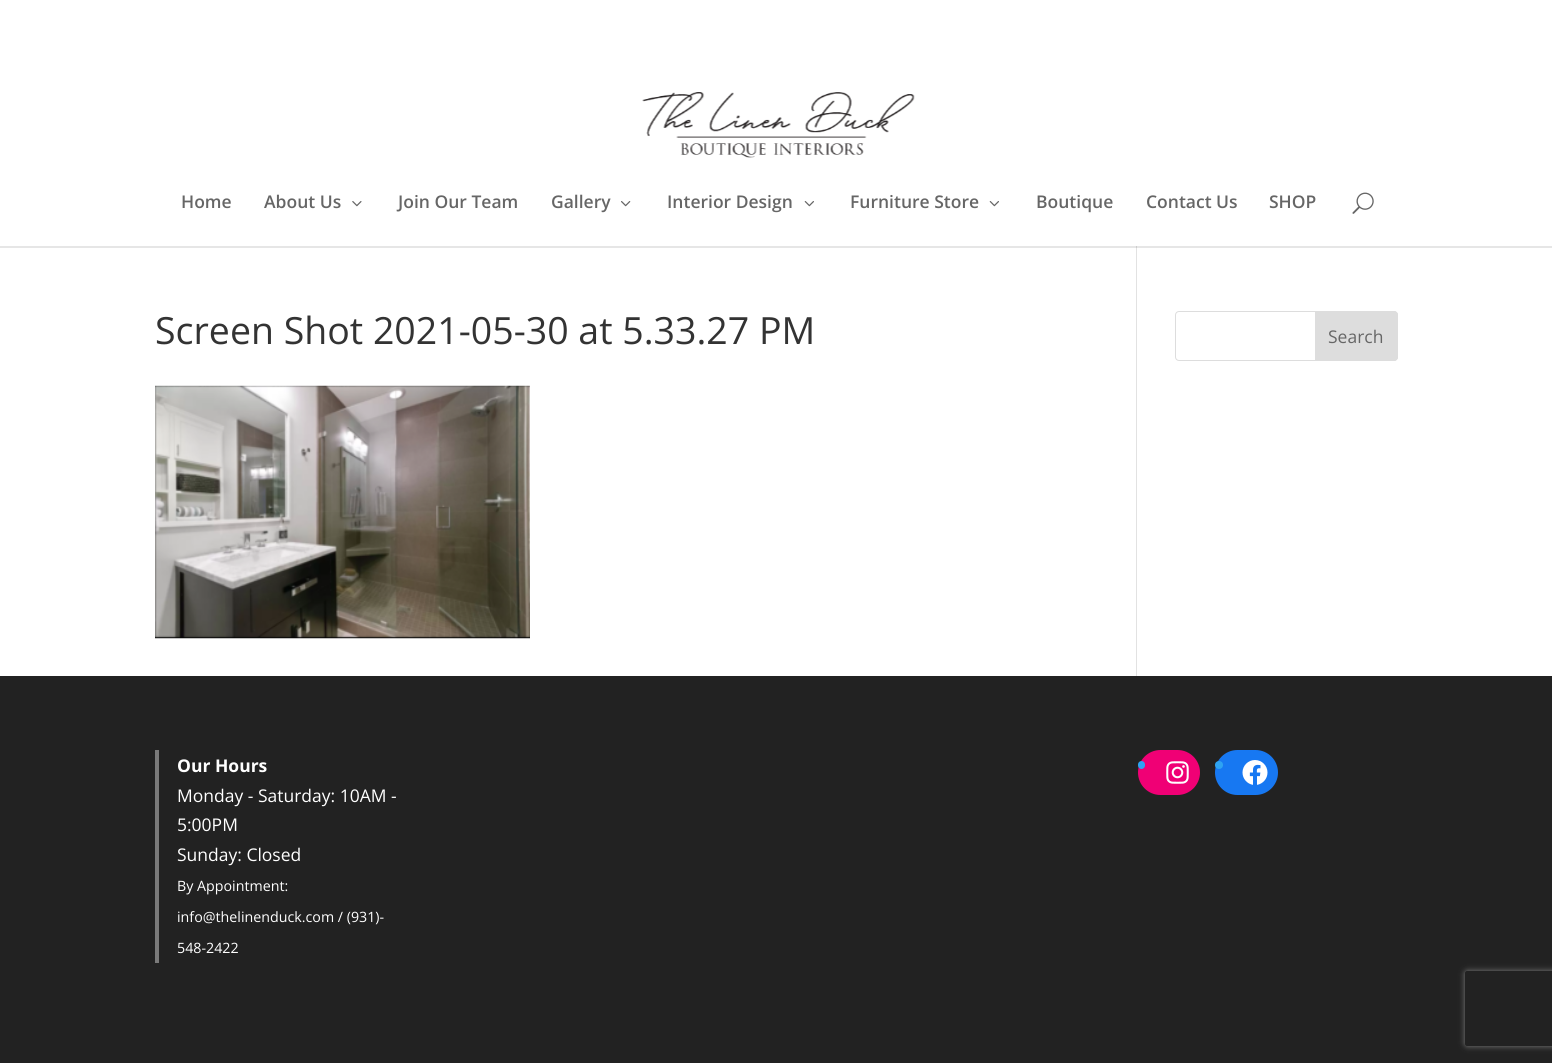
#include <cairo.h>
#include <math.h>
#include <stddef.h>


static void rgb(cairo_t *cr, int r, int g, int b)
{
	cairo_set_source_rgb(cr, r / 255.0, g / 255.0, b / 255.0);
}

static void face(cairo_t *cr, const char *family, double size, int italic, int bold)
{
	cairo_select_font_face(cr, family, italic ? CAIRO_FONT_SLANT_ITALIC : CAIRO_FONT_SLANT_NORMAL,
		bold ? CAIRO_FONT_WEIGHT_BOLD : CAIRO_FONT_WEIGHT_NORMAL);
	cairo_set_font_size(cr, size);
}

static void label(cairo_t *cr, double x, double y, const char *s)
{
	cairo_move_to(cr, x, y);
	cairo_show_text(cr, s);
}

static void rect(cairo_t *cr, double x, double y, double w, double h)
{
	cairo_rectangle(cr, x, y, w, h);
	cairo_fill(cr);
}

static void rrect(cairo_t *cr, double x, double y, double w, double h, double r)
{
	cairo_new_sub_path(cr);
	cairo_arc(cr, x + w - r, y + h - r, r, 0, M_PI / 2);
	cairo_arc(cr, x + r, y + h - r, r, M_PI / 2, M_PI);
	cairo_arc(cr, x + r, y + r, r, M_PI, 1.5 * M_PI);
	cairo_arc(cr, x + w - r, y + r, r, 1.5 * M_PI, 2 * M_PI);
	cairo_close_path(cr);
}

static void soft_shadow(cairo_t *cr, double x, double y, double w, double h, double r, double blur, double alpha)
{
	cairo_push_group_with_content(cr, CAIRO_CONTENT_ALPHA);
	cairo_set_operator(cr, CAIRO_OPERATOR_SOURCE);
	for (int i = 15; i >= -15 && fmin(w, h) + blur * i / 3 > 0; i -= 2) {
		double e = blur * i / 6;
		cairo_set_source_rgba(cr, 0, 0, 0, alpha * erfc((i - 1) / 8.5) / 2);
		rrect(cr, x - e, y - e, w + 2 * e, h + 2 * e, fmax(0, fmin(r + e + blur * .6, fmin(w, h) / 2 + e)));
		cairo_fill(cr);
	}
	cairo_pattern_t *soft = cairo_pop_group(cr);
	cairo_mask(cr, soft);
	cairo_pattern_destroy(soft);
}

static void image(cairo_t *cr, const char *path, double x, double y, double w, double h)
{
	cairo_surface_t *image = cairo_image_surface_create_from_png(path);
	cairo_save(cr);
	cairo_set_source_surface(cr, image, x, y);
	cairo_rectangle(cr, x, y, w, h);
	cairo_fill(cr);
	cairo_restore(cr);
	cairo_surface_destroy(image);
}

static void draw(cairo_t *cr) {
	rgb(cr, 255, 255, 255);
	cairo_paint(cr);
	rgb(cr, 226, 226, 226);
	rect(cr, 1136, 246, 1, 430);
	cairo_set_source_rgba(cr, 0, 0, 0, 0.1);
	cairo_new_path(cr);
	cairo_move_to(cr, 0, 246);
	cairo_line_to(cr, 0, 248);
	cairo_line_to(cr, 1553, 248);
	cairo_line_to(cr, 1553, 1);
	cairo_line_to(cr, 1552, 1);
	cairo_line_to(cr, 1552, 246);
	cairo_close_path(cr);
	cairo_fill(cr);
	image(cr, "image0.png", 642, 92, 273, 66);
	face(cr, "Open Sans SemiBold", 17.5, 0, 0);
	rgb(cr, 102, 102, 102);
	label(cr, 181, 208, "Home");
	label(cr, 264, 208, "About Us");
	image(cr, "image1.png", 352, 201, 10, 6);
	label(cr, 398, 208, "Join Our Team");
	label(cr, 551, 208, "Gallery");
	image(cr, "image2.png", 621, 201, 10, 6);
	label(cr, 667, 208, "Interior Design");
	image(cr, "image3.png", 804, 201, 10, 6);
	label(cr, 850, 208, "Furniture Store");
	image(cr, "image3.png", 989, 201, 10, 6);
	label(cr, 1036, 208, "Boutique");
	label(cr, 1146, 208, "Contact Us");
	label(cr, 1269, 208, "SHOP");
	image(cr, "image4.png", 1352, 192, 22, 22);
	face(cr, "Open Sans", 37.5, 0, 0);
	rgb(cr, 51, 51, 51);
	label(cr, 155, 344, "Screen Shot 2021-05-30 at 5.33.27 PM");
	image(cr, "image5.png", 155, 385, 375, 254);
	rrect(cr, 1175.5, 311.5, 222, 49, 3.5);
	rgb(cr, 221, 221, 221);
	cairo_set_line_width(cr, 1);
	cairo_stroke(cr);
	cairo_new_path(cr);
	cairo_move_to(cr, 1315.5, 311.5);
	cairo_line_to(cr, 1394, 311.5);
	cairo_curve_to(cr, 1396, 311.5, 1397.5, 313, 1397.5, 315);
	cairo_line_to(cr, 1397.5, 357);
	cairo_curve_to(cr, 1397.5, 359, 1396, 360.5, 1394, 360.5);
	cairo_line_to(cr, 1315.5, 360.5);
	cairo_close_path(cr);
	cairo_fill_preserve(cr);
	cairo_stroke(cr);
	face(cr, "Open Sans", 17.5, 0, 0);
	rgb(cr, 102, 102, 102);
	label(cr, 1328, 343, "Search");
	rgb(cr, 34, 34, 34);
	rect(cr, 0, 676, 1552, 387);
	rgb(cr, 122, 122, 122);
	rect(cr, 155, 750, 4, 213);
	face(cr, "Open Sans", 17.5, 0, 1);
	rgb(cr, 255, 255, 255);
	label(cr, 177, 772, "Our Hours");
	face(cr, "Open Sans", 17.5, 0, 0);
	label(cr, 177, 802, "Monday - Saturday: 10AM -");
	label(cr, 177, 831, "5:00PM");
	label(cr, 177, 861, "Sunday: Closed");
	face(cr, "Open Sans", 14.25, 0, 0);
	label(cr, 177, 891, "By Appointment:");
	label(cr, 177, 922, "info@thelinenduck.com / (931)-");
	label(cr, 177, 953, "548-2422");
	rgb(cr, 240, 0, 117);
	rrect(cr, 1138, 750, 62, 45, 22.5);
	cairo_fill(cr);
	rgb(cr, 46, 163, 242);
	rrect(cr, 1138, 761, 7, 8, 3.5);
	cairo_fill(cr);
	image(cr, "image6.png", 1166, 761, 23, 23);
	rgb(cr, 23, 120, 242);
	rrect(cr, 1215, 750, 63, 45, 22.5);
	cairo_fill(cr);
	rgb(cr, 46, 163, 242);
	cairo_arc(cr, 1219, 765, 4, 0, 2 * M_PI);
	cairo_fill(cr);
	image(cr, "image7.png", 1242, 760, 26, 25);
	cairo_save(cr);
	cairo_set_fill_rule(cr, CAIRO_FILL_RULE_EVEN_ODD);
	cairo_new_path(cr);
	cairo_move_to(cr, 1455, 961);
	cairo_line_to(cr, 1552, 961);
	cairo_line_to(cr, 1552, 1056);
	cairo_line_to(cr, 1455, 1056);
	cairo_close_path(cr);
	cairo_move_to(cr, 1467.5, 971);
	cairo_line_to(cr, 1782.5, 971);
	cairo_curve_to(cr, 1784, 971, 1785, 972, 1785, 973.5);
	cairo_line_to(cr, 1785, 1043.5);
	cairo_curve_to(cr, 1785, 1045, 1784, 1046, 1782.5, 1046);
	cairo_line_to(cr, 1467.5, 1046);
	cairo_curve_to(cr, 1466, 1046, 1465, 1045, 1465, 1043.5);
	cairo_line_to(cr, 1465, 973.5);
	cairo_curve_to(cr, 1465, 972, 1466, 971, 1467.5, 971);
	cairo_close_path(cr);
	cairo_clip(cr);
	rgb(cr, 128, 128, 128);
	soft_shadow(cr, 1465, 971, 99, 75, 2.5, 3, 1);
	cairo_restore(cr);
}

int main(void) {
	cairo_surface_t *surface = cairo_image_surface_create(CAIRO_FORMAT_RGB24, 1552, 1063);
	cairo_t *cr = cairo_create(surface);
	cairo_font_options_t *options = cairo_font_options_create();
	cairo_font_options_set_hint_metrics(options, CAIRO_HINT_METRICS_OFF);
	cairo_font_options_set_hint_style(options, CAIRO_HINT_STYLE_NONE);
	cairo_set_font_options(cr, options);
	cairo_set_miter_limit(cr, 4);
	draw(cr);
	cairo_surface_write_to_png(surface, "render.png");
	cairo_font_options_destroy(options);
	cairo_destroy(cr);
	cairo_surface_destroy(surface);
	return 0;
}
